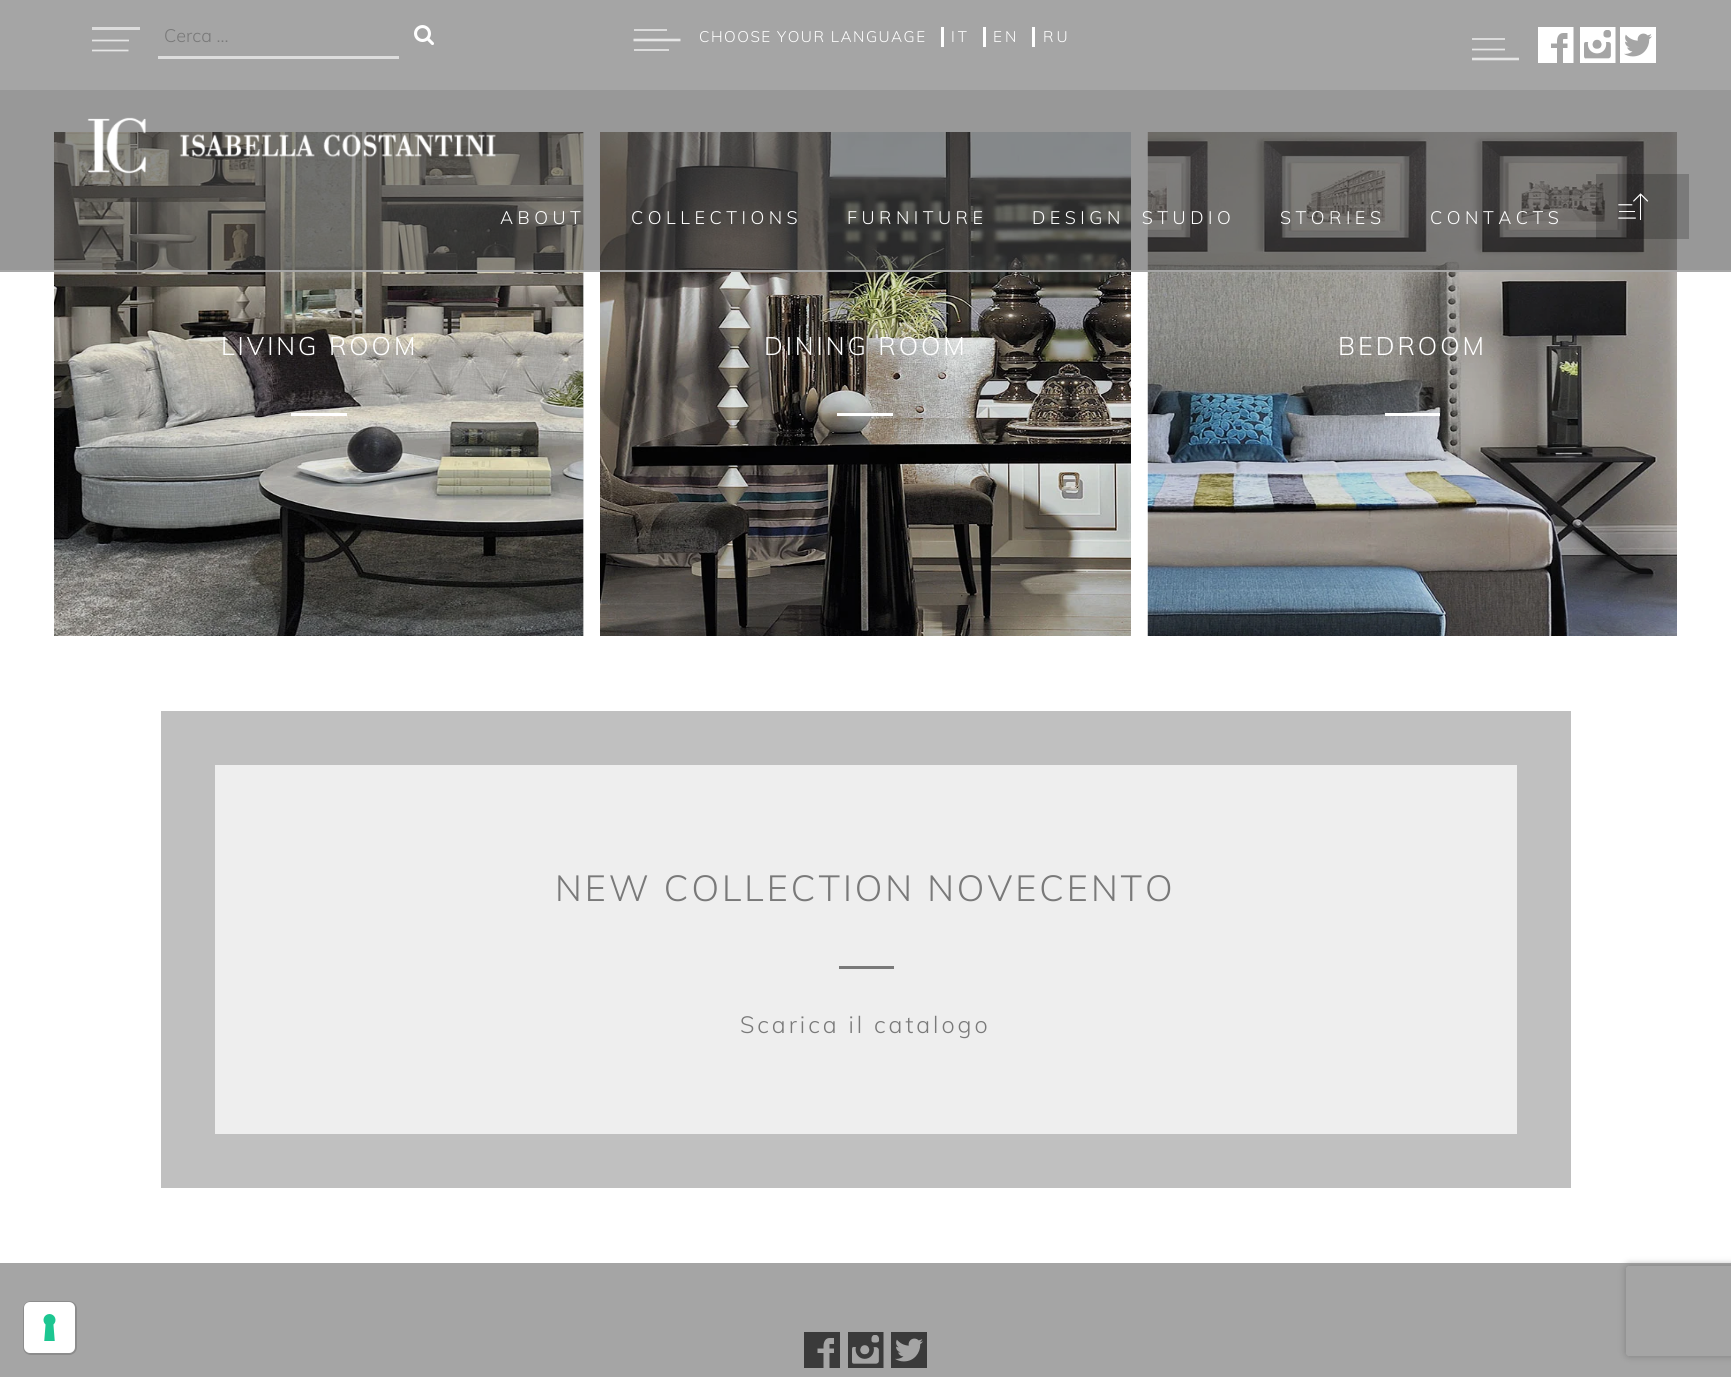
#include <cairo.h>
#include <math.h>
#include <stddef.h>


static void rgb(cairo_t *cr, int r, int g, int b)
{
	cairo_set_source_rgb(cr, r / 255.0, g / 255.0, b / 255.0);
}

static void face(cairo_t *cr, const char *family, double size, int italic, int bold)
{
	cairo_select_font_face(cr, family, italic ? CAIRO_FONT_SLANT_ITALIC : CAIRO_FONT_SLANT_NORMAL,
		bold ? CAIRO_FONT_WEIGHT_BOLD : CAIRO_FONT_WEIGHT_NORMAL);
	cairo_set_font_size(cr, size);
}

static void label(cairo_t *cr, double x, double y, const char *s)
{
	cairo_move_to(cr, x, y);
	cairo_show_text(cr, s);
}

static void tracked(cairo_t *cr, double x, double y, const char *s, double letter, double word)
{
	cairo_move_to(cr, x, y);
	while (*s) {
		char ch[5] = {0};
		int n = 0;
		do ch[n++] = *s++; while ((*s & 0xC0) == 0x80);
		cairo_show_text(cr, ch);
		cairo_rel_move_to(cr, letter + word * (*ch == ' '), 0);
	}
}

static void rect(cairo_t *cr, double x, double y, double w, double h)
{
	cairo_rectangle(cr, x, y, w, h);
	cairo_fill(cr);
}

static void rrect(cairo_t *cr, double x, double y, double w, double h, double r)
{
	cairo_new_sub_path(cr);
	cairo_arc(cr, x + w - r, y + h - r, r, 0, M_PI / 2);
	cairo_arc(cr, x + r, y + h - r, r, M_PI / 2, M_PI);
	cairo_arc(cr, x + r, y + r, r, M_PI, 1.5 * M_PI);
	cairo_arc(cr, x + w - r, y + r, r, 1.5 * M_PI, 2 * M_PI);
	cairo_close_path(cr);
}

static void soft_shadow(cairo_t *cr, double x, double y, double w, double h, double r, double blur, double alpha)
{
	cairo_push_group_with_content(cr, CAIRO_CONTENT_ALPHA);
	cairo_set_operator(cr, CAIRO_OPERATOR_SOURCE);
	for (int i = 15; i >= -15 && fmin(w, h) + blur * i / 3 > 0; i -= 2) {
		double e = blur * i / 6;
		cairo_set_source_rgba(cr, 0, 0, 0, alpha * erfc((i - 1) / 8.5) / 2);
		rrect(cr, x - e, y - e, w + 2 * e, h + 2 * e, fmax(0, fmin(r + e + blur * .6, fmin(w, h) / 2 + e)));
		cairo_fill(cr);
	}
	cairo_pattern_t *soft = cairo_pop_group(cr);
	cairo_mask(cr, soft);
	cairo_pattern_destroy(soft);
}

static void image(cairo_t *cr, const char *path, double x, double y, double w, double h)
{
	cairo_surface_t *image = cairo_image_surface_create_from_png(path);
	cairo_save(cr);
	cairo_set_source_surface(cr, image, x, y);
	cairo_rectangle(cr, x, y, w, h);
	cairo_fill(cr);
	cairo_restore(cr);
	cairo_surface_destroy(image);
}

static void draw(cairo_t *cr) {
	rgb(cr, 255, 255, 255);
	cairo_paint(cr);
	rgb(cr, 230, 230, 230);
	rect(cr, 583, 132, 1, 504);
	image(cr, "image6.png", 54, 132, 530, 504);
	image(cr, "image7.png", 600, 132, 531, 504);
	image(cr, "image8.png", 1147, 132, 530, 504);
	cairo_set_source_rgba(cr, 0.267, 0.267, 0.267, 0.55);
	rect(cr, 0, 90, 1731, 180);
	rgb(cr, 165, 165, 165);
	rect(cr, 0, 270, 1731, 2);
	rect(cr, 0, 0, 1731, 90);
	rgb(cr, 220, 220, 220);
	rect(cr, 92, 27, 48, 3);
	cairo_new_path(cr);
	cairo_move_to(cr, 92, 40.5);
	cairo_line_to(cr, 129, 40.5);
	cairo_move_to(cr, 92, 50.5);
	cairo_line_to(cr, 128.5, 50.5);
	rgb(cr, 229, 229, 229);
	cairo_set_line_width(cr, 1.7);
	cairo_stroke(cr);
	rgb(cr, 221, 221, 221);
	rect(cr, 158, 56, 241, 3);
	face(cr, "Muli Light", 18, 0, 0);
	rgb(cr, 121, 121, 121);
	label(cr, 164, 42, "Cerca …");
	image(cr, "image0.png", 414, 25, 20, 20);
	rgb(cr, 219, 219, 219);
	rect(cr, 634, 29, 33, 2);
	cairo_new_path(cr);
	cairo_move_to(cr, 633.5, 40);
	cairo_line_to(cr, 680.5, 40);
	rgb(cr, 229, 229, 229);
	cairo_set_line_width(cr, 2.6);
	cairo_stroke(cr);
	rgb(cr, 219, 219, 219);
	rect(cr, 634, 49, 35, 2);
	face(cr, "Muli Light", 15.25, 0, 0);
	rgb(cr, 255, 255, 255);
	tracked(cr, 699, 42, "CHOOSE YOUR LANGUAGE", 1.5, 0);
	tracked(cr, 951, 42, "IT", 3, 0);
	rect(cr, 941, 27, 3, 20);
	tracked(cr, 993, 42, "EN", 3, 0);
	rect(cr, 983, 27, 3, 20);
	tracked(cr, 1043, 42, "RU", 3, 0);
	rect(cr, 1032, 27, 3, 20);
	rgb(cr, 219, 219, 219);
	rect(cr, 1472, 38, 33, 2);
	cairo_new_path(cr);
	cairo_move_to(cr, 1472, 49.5);
	cairo_line_to(cr, 1505, 49.5);
	rgb(cr, 229, 229, 229);
	cairo_set_line_width(cr, 1.7);
	cairo_stroke(cr);
	cairo_new_path(cr);
	cairo_move_to(cr, 1472, 59);
	cairo_line_to(cr, 1519, 59);
	cairo_set_line_width(cr, 2.6);
	cairo_stroke(cr);
	image(cr, "image1.png", 1538, 27, 36, 36);
	image(cr, "image2.png", 1580, 27, 36, 36);
	image(cr, "image3.png", 1620, 27, 36, 36);
	image(cr, "image4.png", 87, 117, 409, 57);
	face(cr, "Muli Light", 18, 0, 0);
	rgb(cr, 255, 255, 255);
	tracked(cr, 500, 224, "ABOUT", 4.5, 0);
	tracked(cr, 631, 224, "COLLECTIONS", 4.5, 0);
	tracked(cr, 847, 224, "FURNITURE", 4.5, 0);
	tracked(cr, 1032, 224, "DESIGN STUDIO", 4.5, 8);
	tracked(cr, 1280, 224, "STORIES", 4.5, 0);
	tracked(cr, 1430, 224, "CONTACTS", 4.5, 0);
	cairo_set_source_rgba(cr, 0, 0, 0, 0.2);
	rect(cr, 1596, 174, 93, 65);
	image(cr, "image5.png", 1618, 193, 31, 27);
	face(cr, "Muli Light", 25.25, 0, 0);
	rgb(cr, 255, 255, 255);
	tracked(cr, 221, 355, "LIVING ROOM", 3, 0);
	rect(cr, 291, 413, 56, 3);
	tracked(cr, 764, 355, "DINING ROOM", 3, 0);
	rect(cr, 837, 413, 56, 3);
	tracked(cr, 1338, 355, "BEDROOM", 3, 0);
	rect(cr, 1385, 413, 55, 3);
	rgb(cr, 238, 238, 238);
	cairo_rectangle(cr, 188, 738, 1356, 423);
	cairo_fill_preserve(cr);
	rgb(cr, 192, 192, 192);
	cairo_set_line_width(cr, 54);
	cairo_stroke(cr);
	face(cr, "Muli Light", 36, 0, 0);
	rgb(cr, 121, 121, 121);
	tracked(cr, 555, 901, "NEW COLLECTION NOVECENTO", 3, 0);
	rect(cr, 839, 966, 55, 3);
	face(cr, "Muli Light", 23.4, 0, 0);
	tracked(cr, 740, 1033, "Scarica il catalogo", 3, 0);
	rgb(cr, 165, 165, 165);
	rect(cr, 0, 1263, 1731, 114);
	cairo_save(cr);
	cairo_set_fill_rule(cr, CAIRO_FILL_RULE_EVEN_ODD);
	cairo_new_path(cr);
	cairo_move_to(cr, 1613, 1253);
	cairo_line_to(cr, 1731, 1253);
	cairo_line_to(cr, 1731, 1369);
	cairo_line_to(cr, 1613, 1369);
	cairo_close_path(cr);
	cairo_move_to(cr, 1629, 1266);
	cairo_line_to(cr, 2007, 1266);
	cairo_curve_to(cr, 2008.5, 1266, 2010, 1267.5, 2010, 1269);
	cairo_line_to(cr, 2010, 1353);
	cairo_curve_to(cr, 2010, 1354.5, 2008.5, 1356, 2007, 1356);
	cairo_line_to(cr, 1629, 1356);
	cairo_curve_to(cr, 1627.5, 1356, 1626, 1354.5, 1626, 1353);
	cairo_line_to(cr, 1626, 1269);
	cairo_curve_to(cr, 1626, 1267.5, 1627.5, 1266, 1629, 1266);
	cairo_close_path(cr);
	cairo_clip(cr);
	rgb(cr, 128, 128, 128);
	soft_shadow(cr, 1626, 1266, 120, 90, 3, 4, 1);
	cairo_restore(cr);
	image(cr, "image9.png", 804, 1332, 36, 36);
	image(cr, "image10.png", 848, 1332, 36, 36);
	image(cr, "image11.png", 891, 1332, 36, 36);
	rrect(cr, 24, 1302, 52, 52, 7);
	rgb(cr, 140, 140, 140);
	cairo_set_line_width(cr, 2);
	cairo_stroke(cr);
	rgb(cr, 255, 255, 255);
	rrect(cr, 24, 1302, 51, 51, 6);
	cairo_fill(cr);
	image(cr, "image12.png", 43, 1314, 13, 27);
}

int main(void) {
	cairo_surface_t *surface = cairo_image_surface_create(CAIRO_FORMAT_RGB24, 1731, 1377);
	cairo_t *cr = cairo_create(surface);
	cairo_font_options_t *options = cairo_font_options_create();
	cairo_font_options_set_hint_metrics(options, CAIRO_HINT_METRICS_OFF);
	cairo_font_options_set_hint_style(options, CAIRO_HINT_STYLE_NONE);
	cairo_set_font_options(cr, options);
	cairo_set_miter_limit(cr, 4);
	draw(cr);
	cairo_surface_write_to_png(surface, "render.png");
	cairo_font_options_destroy(options);
	cairo_destroy(cr);
	cairo_surface_destroy(surface);
	return 0;
}
